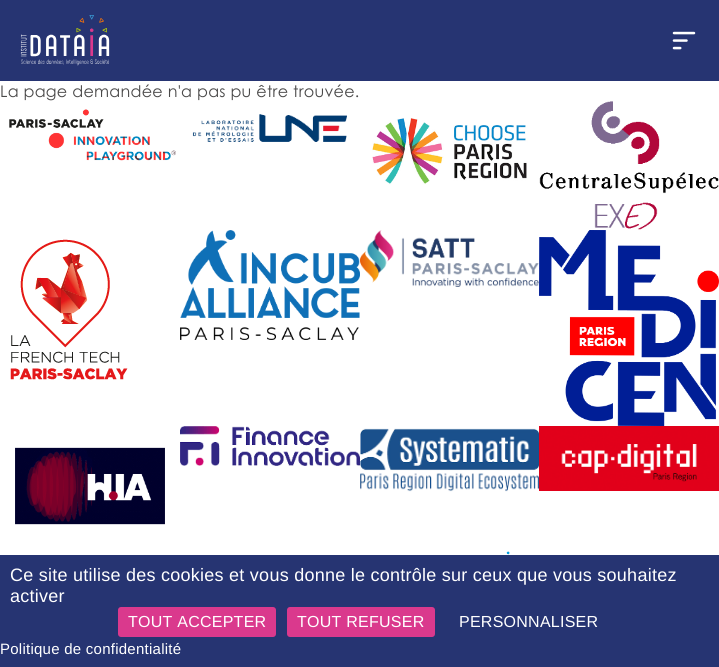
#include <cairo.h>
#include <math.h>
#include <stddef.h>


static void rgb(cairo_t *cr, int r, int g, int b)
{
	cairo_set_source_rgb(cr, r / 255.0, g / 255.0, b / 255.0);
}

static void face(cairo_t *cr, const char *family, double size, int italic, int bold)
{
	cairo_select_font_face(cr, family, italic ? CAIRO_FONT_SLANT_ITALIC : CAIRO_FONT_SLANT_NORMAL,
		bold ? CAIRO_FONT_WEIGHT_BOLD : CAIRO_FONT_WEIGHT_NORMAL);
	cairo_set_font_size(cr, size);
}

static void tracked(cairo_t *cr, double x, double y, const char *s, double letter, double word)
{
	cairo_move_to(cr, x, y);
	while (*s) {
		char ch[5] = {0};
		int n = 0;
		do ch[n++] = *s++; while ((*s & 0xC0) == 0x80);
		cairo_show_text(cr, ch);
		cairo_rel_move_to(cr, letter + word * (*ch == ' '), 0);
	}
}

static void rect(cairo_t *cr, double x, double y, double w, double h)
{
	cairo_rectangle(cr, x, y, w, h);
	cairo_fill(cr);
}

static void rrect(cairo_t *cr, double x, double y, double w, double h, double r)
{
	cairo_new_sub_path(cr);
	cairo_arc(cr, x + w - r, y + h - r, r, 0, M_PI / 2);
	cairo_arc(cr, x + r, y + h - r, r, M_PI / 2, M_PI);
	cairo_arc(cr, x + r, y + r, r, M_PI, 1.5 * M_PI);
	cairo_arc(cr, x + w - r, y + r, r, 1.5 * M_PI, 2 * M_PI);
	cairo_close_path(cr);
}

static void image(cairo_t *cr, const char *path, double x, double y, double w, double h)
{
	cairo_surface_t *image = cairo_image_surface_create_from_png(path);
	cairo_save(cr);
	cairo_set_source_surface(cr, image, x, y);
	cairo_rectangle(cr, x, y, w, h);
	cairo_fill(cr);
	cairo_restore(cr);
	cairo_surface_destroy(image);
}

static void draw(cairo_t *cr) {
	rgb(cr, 255, 255, 255);
	cairo_paint(cr);
	rgb(cr, 38, 52, 114);
	rect(cr, 0, 0, 719, 81);
	image(cr, "image0.png", 20, 15, 90, 51);
	image(cr, "image1.png", 672, 31, 24, 19);
	face(cr, "Century Gothic", 16, 0, 0);
	rgb(cr, 74, 73, 73);
	tracked(cr, 0, 97, "La page demandée n'a pas pu être trouvée.", 0.25, 0);
	image(cr, "image2.png", 9, 109, 167, 52);
	image(cr, "image3.png", 192, 114, 155, 28);
	image(cr, "image4.png", 372, 118, 156, 67);
	image(cr, "image5.png", 539, 101, 180, 129);
	image(cr, "image6.png", 10, 239, 118, 141);
	image(cr, "image7.png", 180, 230, 180, 110);
	image(cr, "image8.png", 360, 230, 179, 57);
	image(cr, "image9.png", 539, 230, 180, 196);
	image(cr, "image10.png", 15, 447, 150, 78);
	image(cr, "image11.png", 180, 426, 180, 40);
	image(cr, "image12.png", 360, 428, 179, 64);
	image(cr, "image13.png", 539, 426, 180, 65);
	image(cr, "image14.png", 360, 551, 175, 4);
	rgb(cr, 38, 52, 114);
	rect(cr, 0, 555, 719, 112);
	face(cr, "Liberation Sans", 18, 0, 0);
	rgb(cr, 255, 255, 255);
	tracked(cr, 10, 581, "Ce site utilise des cookies et vous donne le contrôle sur ceux que vous souhaitez", 0.25, 0);
	tracked(cr, 10, 602, "activer", 0.25, 0);
	rgb(cr, 218, 57, 141);
	rrect(cr, 118, 607, 158, 30, 3);
	cairo_fill(cr);
	face(cr, "Liberation Sans", 16, 0, 0);
	rgb(cr, 255, 255, 255);
	tracked(cr, 128, 627, "TOUT ACCEPTER", 0.25, 0);
	rgb(cr, 218, 57, 141);
	rrect(cr, 287, 607, 148, 30, 3);
	cairo_fill(cr);
	rgb(cr, 255, 255, 255);
	tracked(cr, 297, 627, "TOUT REFUSER", 0.25, 0);
	tracked(cr, 459, 627, "PERSONNALISER", 0.25, 0);
	face(cr, "Liberation Sans", 15, 0, 0);
	tracked(cr, 0, 654, "Politique de confidentialité", 0.25, 0);
}

int main(void) {
	cairo_surface_t *surface = cairo_image_surface_create(CAIRO_FORMAT_RGB24, 719, 667);
	cairo_t *cr = cairo_create(surface);
	cairo_font_options_t *options = cairo_font_options_create();
	cairo_font_options_set_hint_metrics(options, CAIRO_HINT_METRICS_OFF);
	cairo_font_options_set_hint_style(options, CAIRO_HINT_STYLE_NONE);
	cairo_set_font_options(cr, options);
	cairo_set_miter_limit(cr, 4);
	draw(cr);
	cairo_surface_write_to_png(surface, "render.png");
	cairo_font_options_destroy(options);
	cairo_destroy(cr);
	cairo_surface_destroy(surface);
	return 0;
}
